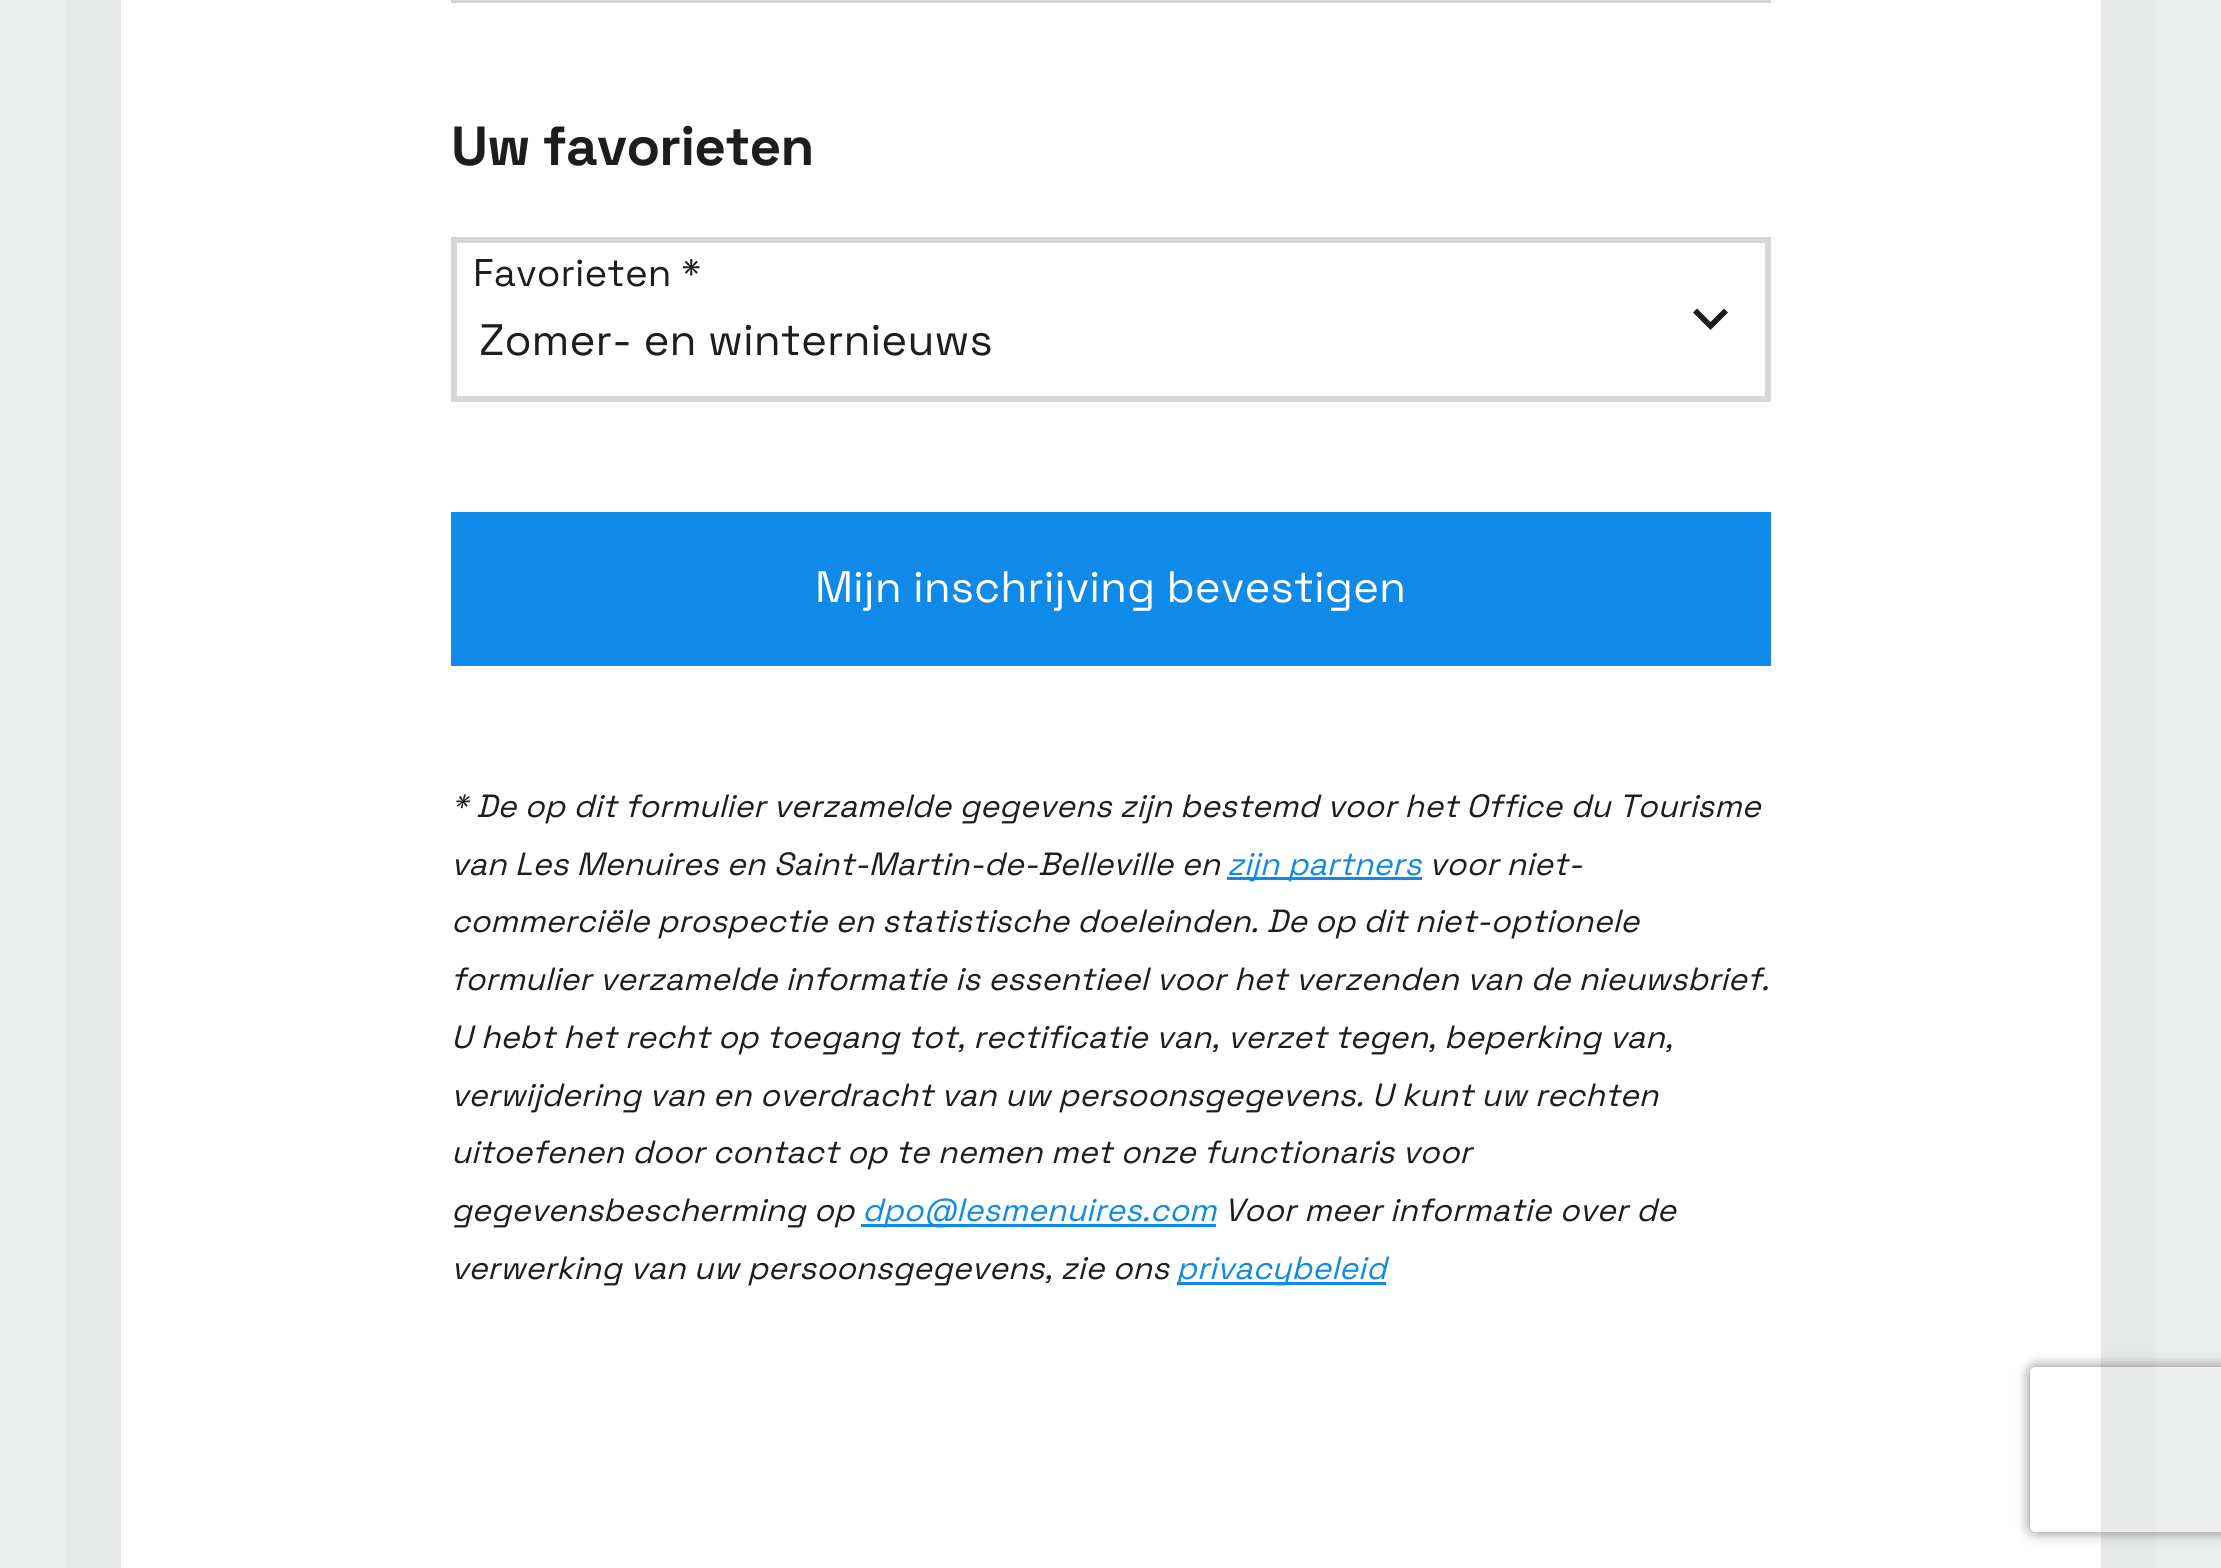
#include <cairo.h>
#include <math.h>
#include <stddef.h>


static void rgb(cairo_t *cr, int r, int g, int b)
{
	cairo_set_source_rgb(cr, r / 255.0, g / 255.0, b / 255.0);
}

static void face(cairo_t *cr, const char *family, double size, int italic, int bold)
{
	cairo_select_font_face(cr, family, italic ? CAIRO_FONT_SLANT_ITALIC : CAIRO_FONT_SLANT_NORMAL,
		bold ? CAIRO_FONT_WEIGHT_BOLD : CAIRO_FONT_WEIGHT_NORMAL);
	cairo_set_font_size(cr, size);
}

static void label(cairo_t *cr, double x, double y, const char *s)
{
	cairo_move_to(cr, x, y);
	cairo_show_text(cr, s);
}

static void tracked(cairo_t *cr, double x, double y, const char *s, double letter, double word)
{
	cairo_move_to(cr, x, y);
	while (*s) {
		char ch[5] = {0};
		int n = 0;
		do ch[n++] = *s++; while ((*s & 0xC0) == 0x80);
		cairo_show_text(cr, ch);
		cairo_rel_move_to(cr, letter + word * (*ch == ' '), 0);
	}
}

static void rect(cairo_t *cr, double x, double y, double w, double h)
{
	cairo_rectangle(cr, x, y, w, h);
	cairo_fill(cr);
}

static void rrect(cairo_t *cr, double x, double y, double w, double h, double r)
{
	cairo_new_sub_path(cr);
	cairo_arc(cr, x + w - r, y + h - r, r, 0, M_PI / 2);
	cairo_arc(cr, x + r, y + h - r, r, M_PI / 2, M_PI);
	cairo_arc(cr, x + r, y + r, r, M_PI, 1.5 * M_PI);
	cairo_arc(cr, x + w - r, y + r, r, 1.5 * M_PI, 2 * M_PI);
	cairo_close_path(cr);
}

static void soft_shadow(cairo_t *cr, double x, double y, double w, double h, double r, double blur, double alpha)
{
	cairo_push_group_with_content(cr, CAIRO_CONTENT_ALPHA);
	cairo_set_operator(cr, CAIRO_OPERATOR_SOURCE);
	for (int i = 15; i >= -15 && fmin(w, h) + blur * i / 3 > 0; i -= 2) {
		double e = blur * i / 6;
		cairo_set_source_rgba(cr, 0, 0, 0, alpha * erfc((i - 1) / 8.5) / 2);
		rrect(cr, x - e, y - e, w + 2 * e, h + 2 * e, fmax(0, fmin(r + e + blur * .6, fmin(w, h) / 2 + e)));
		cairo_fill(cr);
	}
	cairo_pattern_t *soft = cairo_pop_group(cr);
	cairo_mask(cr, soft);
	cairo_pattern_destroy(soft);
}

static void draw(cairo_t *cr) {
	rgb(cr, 251, 252, 252);
	cairo_paint(cr);
	rgb(cr, 0, 0, 0);
	soft_shadow(cr, 121, -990, 1980, 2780, 0, 330, 0.16);
	rgb(cr, 255, 255, 255);
	rect(cr, 121, 0, 1980, 1568);
	cairo_rectangle(cr, 454, -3, 1314, 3);
	rgb(cr, 215, 215, 215);
	cairo_set_line_width(cr, 6);
	cairo_stroke(cr);
	face(cr, "Space Grotesk Light", 55, 0, 0);
	rgb(cr, 29, 29, 29);
	tracked(cr, 451, 165, "Uw favorieten", -0.75, 0);
	cairo_new_path(cr);
	cairo_move_to(cr, 1710.5, 322);
	cairo_line_to(cr, 1724, 308.5);
	cairo_line_to(cr, 1728, 312.5);
	cairo_line_to(cr, 1710.5, 330);
	cairo_line_to(cr, 1693, 312.5);
	cairo_line_to(cr, 1697, 308.5);
	cairo_close_path(cr);
	cairo_fill(cr);
	cairo_rectangle(cr, 454, 240, 1314, 159);
	rgb(cr, 215, 215, 215);
	cairo_stroke(cr);
	face(cr, "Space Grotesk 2 Light", 38.5, 0, 0);
	rgb(cr, 29, 29, 29);
	label(cr, 473, 286, "Favorieten *");
	face(cr, "Space Grotesk 2 Light", 44, 0, 0);
	label(cr, 479, 355, "Zomer- en winternieuws");
	rgb(cr, 15, 138, 232);
	rect(cr, 451, 512, 1320, 154);
	rgb(cr, 255, 255, 255);
	label(cr, 815, 602, "Mijn inschrijving bevestigen");
	face(cr, "Space Grotesk Light", 32.1, 1, 0);
	rgb(cr, 29, 29, 29);
	label(cr, 451, 817, "* De op dit formulier verzamelde gegevens zijn bestemd voor het Office du Tourisme");
	label(cr, 451, 875, "van Les Menuires en Saint-Martin-de-Belleville en");
	rgb(cr, 15, 138, 232);
	rect(cr, 1227, 877, 195, 3);
	label(cr, 1227, 875, "zijn partners");
	rgb(cr, 29, 29, 29);
	label(cr, 1429, 875, "voor niet-");
	tracked(cr, 451, 932, "commerciële prospectie en statistische doeleinden. De op dit niet-optionele", 0, -0.25);
	label(cr, 451, 990, "formulier verzamelde informatie is essentieel voor het verzenden van de nieuwsbrief.");
	label(cr, 451, 1048, "U hebt het recht op toegang tot, rectificatie van, verzet tegen, beperking van,");
	label(cr, 451, 1106, "verwijdering van en overdracht van uw persoonsgegevens. U kunt uw rechten");
	label(cr, 451, 1163, "uitoefenen door contact op te nemen met onze functionaris voor");
	label(cr, 451, 1221, "gegevensbescherming op");
	rgb(cr, 15, 138, 232);
	rect(cr, 861, 1224, 355, 3);
	label(cr, 862, 1221, "dpo@lesmenuires.com");
	rgb(cr, 29, 29, 29);
	label(cr, 1224, 1221, "Voor meer informatie over de");
	label(cr, 451, 1279, "verwerking van uw persoonsgegevens, zie ons");
	rgb(cr, 15, 138, 232);
	rect(cr, 1177, 1282, 209, 3);
	label(cr, 1176, 1279, "privacybeleid");
	cairo_save(cr);
	cairo_set_fill_rule(cr, CAIRO_FILL_RULE_EVEN_ODD);
	cairo_new_path(cr);
	cairo_move_to(cr, 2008, 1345);
	cairo_line_to(cr, 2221, 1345);
	cairo_line_to(cr, 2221, 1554);
	cairo_line_to(cr, 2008, 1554);
	cairo_close_path(cr);
	cairo_move_to(cr, 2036, 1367);
	cairo_line_to(cr, 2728, 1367);
	cairo_curve_to(cr, 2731.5, 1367, 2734, 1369.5, 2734, 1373);
	cairo_line_to(cr, 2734, 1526);
	cairo_curve_to(cr, 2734, 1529.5, 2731.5, 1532, 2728, 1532);
	cairo_line_to(cr, 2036, 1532);
	cairo_curve_to(cr, 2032.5, 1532, 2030, 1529.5, 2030, 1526);
	cairo_line_to(cr, 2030, 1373);
	cairo_curve_to(cr, 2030, 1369.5, 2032.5, 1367, 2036, 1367);
	cairo_close_path(cr);
	cairo_clip(cr);
	rgb(cr, 128, 128, 128);
	soft_shadow(cr, 2030, 1367, 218, 165, 6, 7, 1);
	cairo_restore(cr);
}

int main(void) {
	cairo_surface_t *surface = cairo_image_surface_create(CAIRO_FORMAT_RGB24, 2221, 1568);
	cairo_t *cr = cairo_create(surface);
	cairo_font_options_t *options = cairo_font_options_create();
	cairo_font_options_set_hint_metrics(options, CAIRO_HINT_METRICS_OFF);
	cairo_font_options_set_hint_style(options, CAIRO_HINT_STYLE_NONE);
	cairo_set_font_options(cr, options);
	cairo_set_miter_limit(cr, 4);
	draw(cr);
	cairo_surface_write_to_png(surface, "render.png");
	cairo_font_options_destroy(options);
	cairo_destroy(cr);
	cairo_surface_destroy(surface);
	return 0;
}
